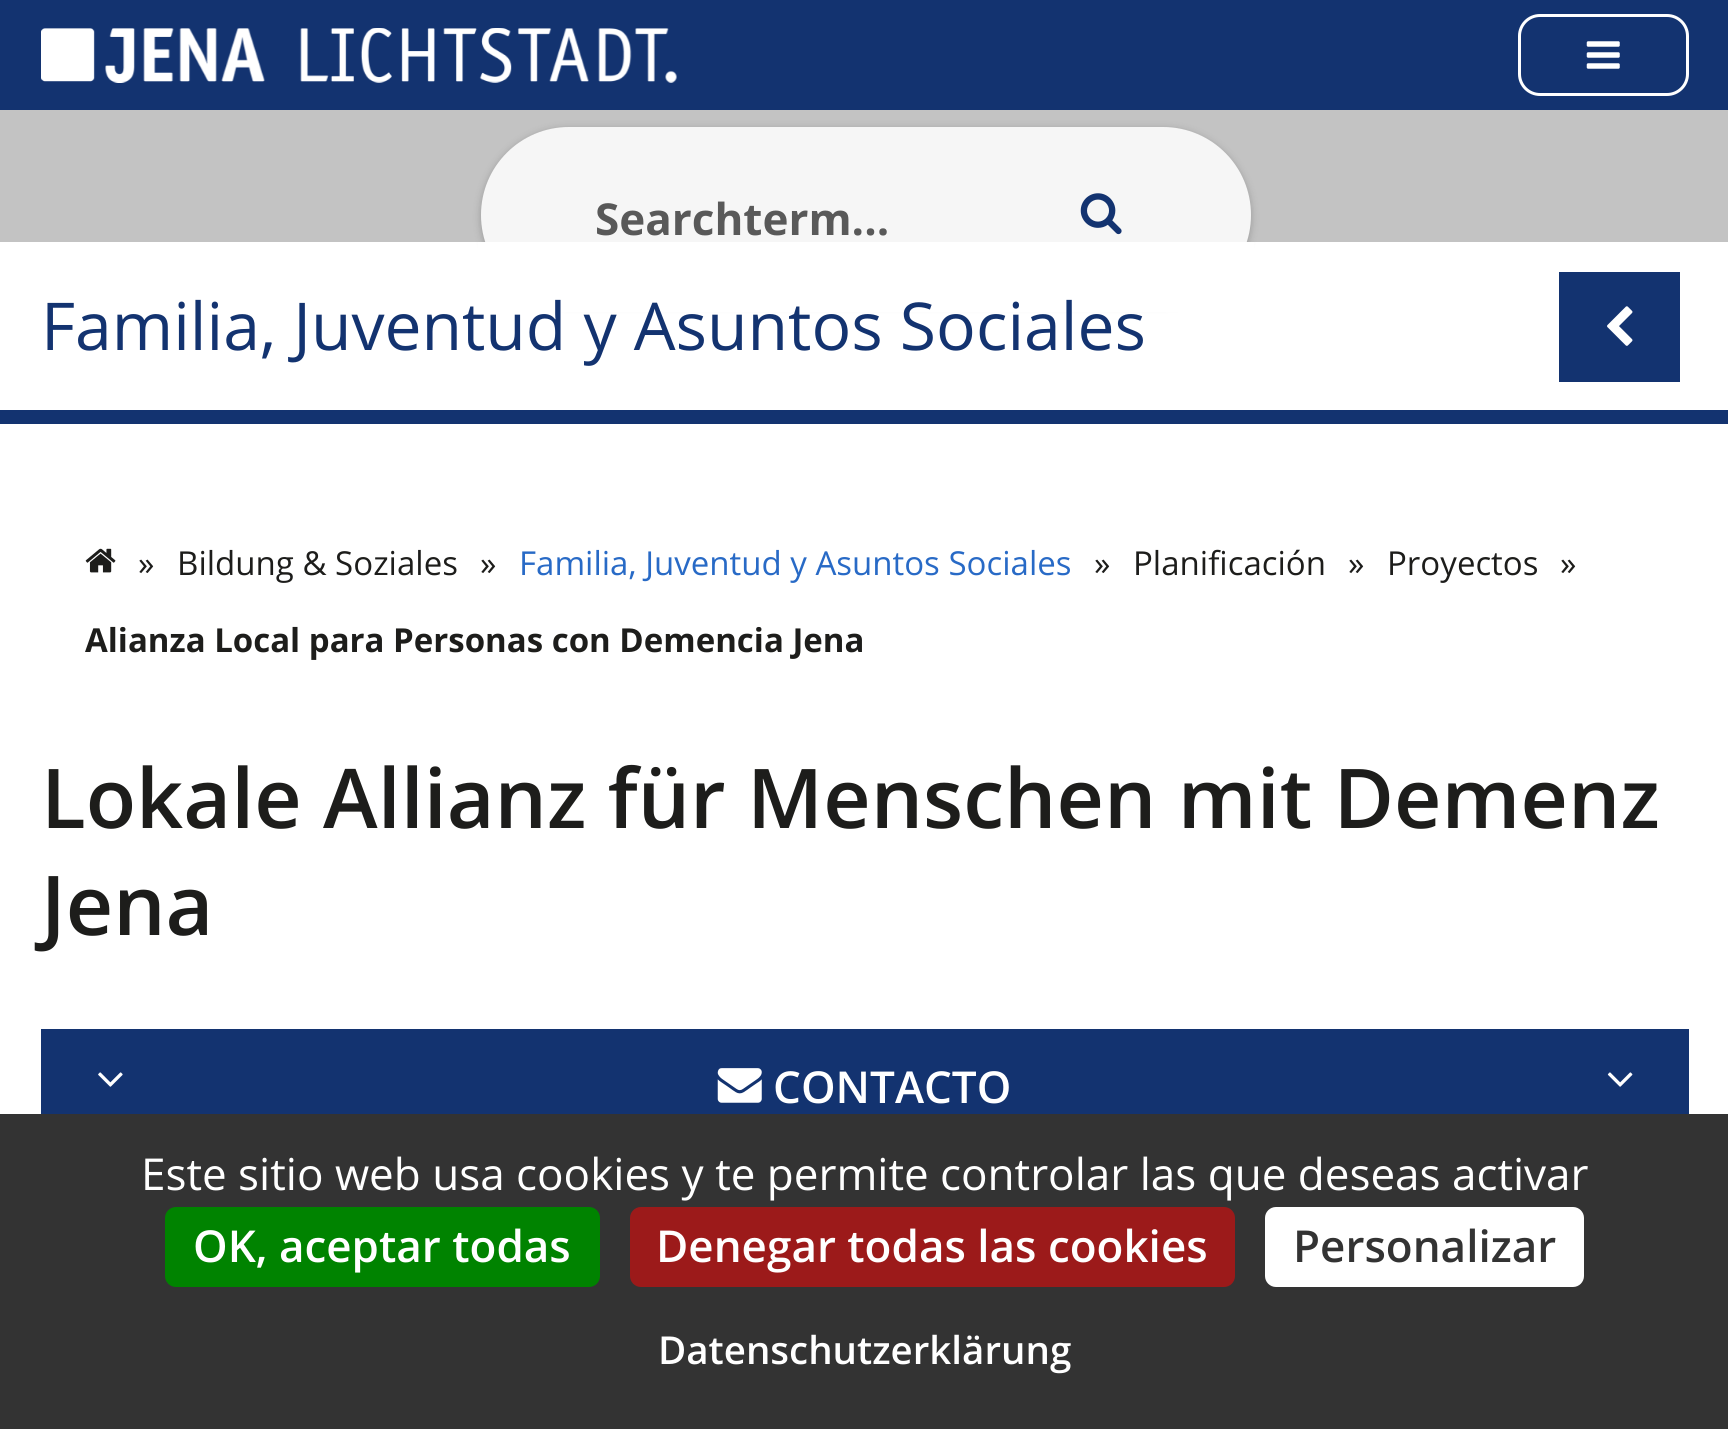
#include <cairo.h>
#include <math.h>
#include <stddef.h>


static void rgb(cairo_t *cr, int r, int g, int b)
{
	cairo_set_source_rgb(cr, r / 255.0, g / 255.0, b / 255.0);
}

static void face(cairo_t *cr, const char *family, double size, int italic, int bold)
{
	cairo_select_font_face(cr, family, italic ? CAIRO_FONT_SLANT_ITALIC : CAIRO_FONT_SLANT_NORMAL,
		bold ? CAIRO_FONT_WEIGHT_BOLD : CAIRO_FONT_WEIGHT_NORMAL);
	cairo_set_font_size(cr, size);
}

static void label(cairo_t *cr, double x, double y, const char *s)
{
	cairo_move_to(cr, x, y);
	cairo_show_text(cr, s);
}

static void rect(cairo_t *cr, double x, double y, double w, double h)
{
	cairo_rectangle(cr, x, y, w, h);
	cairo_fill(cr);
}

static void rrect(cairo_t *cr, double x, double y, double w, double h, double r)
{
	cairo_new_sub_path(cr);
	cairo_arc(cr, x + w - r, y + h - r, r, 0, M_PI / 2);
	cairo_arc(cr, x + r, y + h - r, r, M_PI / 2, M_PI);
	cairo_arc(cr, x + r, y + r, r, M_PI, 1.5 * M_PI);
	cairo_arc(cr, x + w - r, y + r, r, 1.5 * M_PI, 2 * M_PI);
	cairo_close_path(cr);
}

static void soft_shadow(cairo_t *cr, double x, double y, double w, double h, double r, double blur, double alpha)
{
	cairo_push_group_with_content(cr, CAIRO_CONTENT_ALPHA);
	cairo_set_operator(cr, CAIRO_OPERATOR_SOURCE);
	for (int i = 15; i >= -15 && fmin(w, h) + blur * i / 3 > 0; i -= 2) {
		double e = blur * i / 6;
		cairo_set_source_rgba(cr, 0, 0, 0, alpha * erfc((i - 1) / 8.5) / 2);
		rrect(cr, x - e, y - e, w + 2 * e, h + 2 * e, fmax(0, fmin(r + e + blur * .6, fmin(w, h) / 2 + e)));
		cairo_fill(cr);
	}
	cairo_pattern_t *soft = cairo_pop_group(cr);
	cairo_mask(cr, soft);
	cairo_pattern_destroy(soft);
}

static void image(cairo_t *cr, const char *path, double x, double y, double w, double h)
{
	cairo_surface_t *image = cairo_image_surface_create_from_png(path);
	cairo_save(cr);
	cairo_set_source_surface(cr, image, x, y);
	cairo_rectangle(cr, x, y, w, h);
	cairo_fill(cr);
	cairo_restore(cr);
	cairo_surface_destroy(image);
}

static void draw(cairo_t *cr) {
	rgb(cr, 255, 255, 255);
	cairo_paint(cr);
	rgb(cr, 195, 195, 195);
	rect(cr, 0, 110, 1728, 132);
	rgb(cr, 19, 51, 112);
	rect(cr, 0, 0, 1728, 110);
	image(cr, "image0.png", 41, 28, 636, 55);
	rrect(cr, 1519.5, 15.5, 168, 79, 20.5);
	rgb(cr, 255, 255, 255);
	cairo_set_line_width(cr, 3);
	cairo_stroke(cr);
	image(cr, "image1.png", 1586, 41, 34, 28);
	rgb(cr, 0, 0, 0);
	soft_shadow(cr, 481, 129, 770, 176, 88, 4, 0.22);
	rgb(cr, 246, 246, 246);
	rrect(cr, 481, 127, 770, 176, 88);
	cairo_fill(cr);
	face(cr, "Open Sans", 44, 0, 1);
	rgb(cr, 89, 89, 89);
	label(cr, 595, 235, "Searchterm...");
	image(cr, "image2.png", 1080, 193, 42, 42);
	rgb(cr, 255, 255, 255);
	rect(cr, 478, 242, 776, 70);
	rgb(cr, 19, 51, 112);
	rect(cr, 0, 410, 1728, 14);
	face(cr, "Open Sans", 66, 0, 0);
	label(cr, 41, 350, "Familia, Juventud y Asuntos Sociales");
	rect(cr, 1559, 272, 121, 110);
	image(cr, "image3.png", 1607, 306, 26, 40);
	image(cr, "image4.png", 85, 548, 31, 25);
	face(cr, "Open Sans", 33, 0, 0);
	rgb(cr, 29, 29, 27);
	label(cr, 138, 575, "»");
	label(cr, 177, 575, "Bildung & Soziales");
	label(cr, 480, 575, "»");
	rgb(cr, 40, 106, 198);
	label(cr, 519, 575, "Familia, Juventud y Asuntos Sociales");
	rgb(cr, 29, 29, 27);
	label(cr, 1094, 575, "»");
	label(cr, 1133, 575, "Planificación");
	label(cr, 1348, 575, "»");
	label(cr, 1387, 575, "Proyectos");
	label(cr, 1560, 575, "»");
	face(cr, "Open Sans", 33, 0, 1);
	label(cr, 85, 652, "Alianza Local para Personas con Demencia Jena");
	face(cr, "Open Sans SemiBold", 82.5, 0, 0);
	label(cr, 41, 828, "Lokale Allianz für Menschen mit Demenz");
	label(cr, 41, 935, "Jena");
	rgb(cr, 19, 51, 112);
	rect(cr, 41, 1029, 1648, 85);
	image(cr, "image5.png", 98, 1072, 25, 15);
	image(cr, "image6.png", 717, 1068, 45, 35);
	face(cr, "Open Sans SemiBold", 44, 0, 0);
	rgb(cr, 255, 255, 255);
	label(cr, 773, 1103, "CONTACTO");
	image(cr, "image7.png", 1607, 1072, 26, 15);
	rgb(cr, 51, 51, 51);
	rect(cr, 0, 1114, 1728, 315);
	face(cr, "Open Sans", 44, 0, 0);
	rgb(cr, 255, 255, 255);
	label(cr, 141, 1190, "Este sitio web usa cookies y te permite controlar las que deseas activar");
	rgb(cr, 0, 131, 0);
	rrect(cr, 165, 1207, 435, 80, 11);
	cairo_fill(cr);
	face(cr, "Open Sans SemiBold", 44, 0, 0);
	rgb(cr, 255, 255, 255);
	label(cr, 193, 1262, "OK, aceptar todas");
	rgb(cr, 156, 26, 26);
	rrect(cr, 630, 1207, 605, 80, 11);
	cairo_fill(cr);
	rgb(cr, 255, 255, 255);
	label(cr, 656, 1262, "Denegar todas las cookies");
	rrect(cr, 1265, 1207, 319, 80, 11);
	cairo_fill(cr);
	rgb(cr, 51, 51, 51);
	label(cr, 1293, 1262, "Personalizar");
	face(cr, "Open Sans SemiBold", 38.5, 0, 0);
	rgb(cr, 255, 255, 255);
	label(cr, 658, 1364, "Datenschutzerklärung");
}

int main(void) {
	cairo_surface_t *surface = cairo_image_surface_create(CAIRO_FORMAT_RGB24, 1728, 1429);
	cairo_t *cr = cairo_create(surface);
	cairo_font_options_t *options = cairo_font_options_create();
	cairo_font_options_set_hint_metrics(options, CAIRO_HINT_METRICS_OFF);
	cairo_font_options_set_hint_style(options, CAIRO_HINT_STYLE_NONE);
	cairo_set_font_options(cr, options);
	cairo_set_miter_limit(cr, 4);
	draw(cr);
	cairo_surface_write_to_png(surface, "render.png");
	cairo_font_options_destroy(options);
	cairo_destroy(cr);
	cairo_surface_destroy(surface);
	return 0;
}
